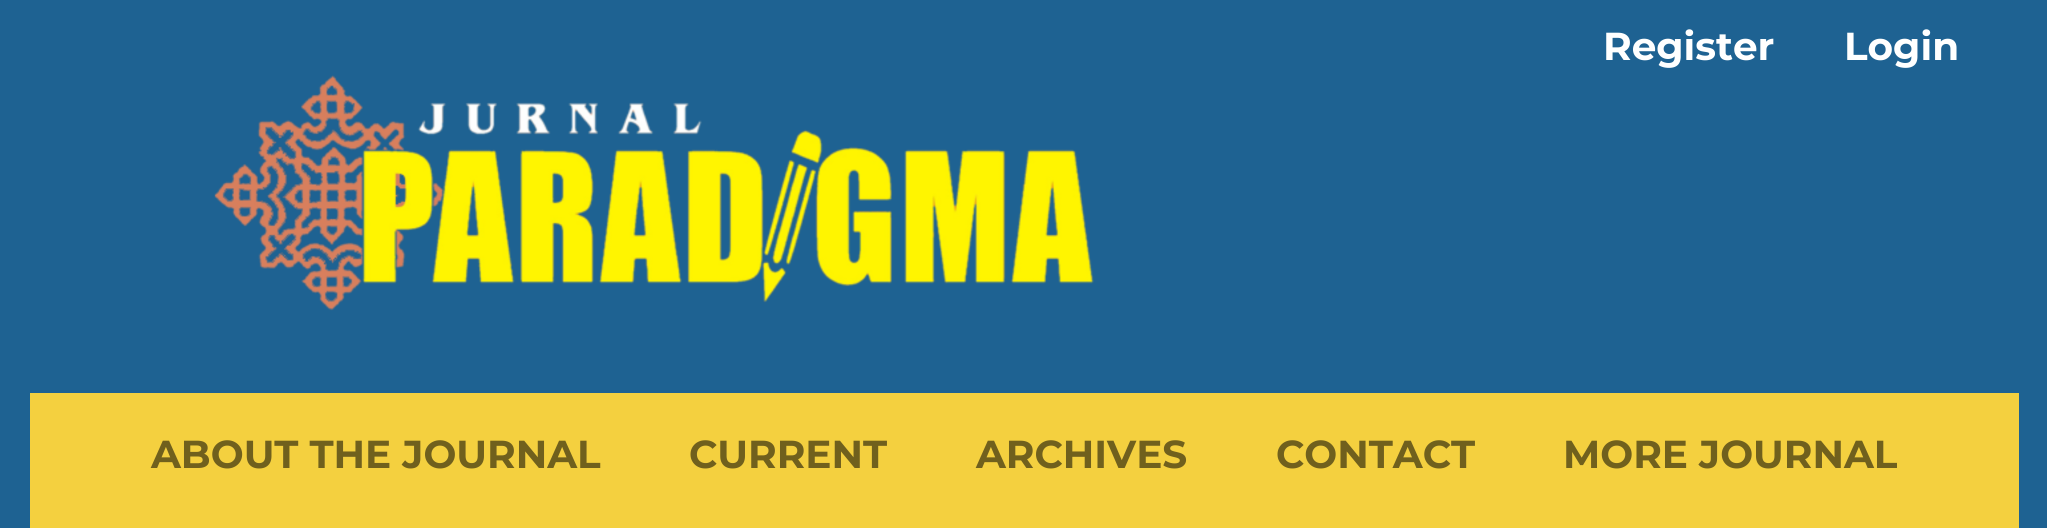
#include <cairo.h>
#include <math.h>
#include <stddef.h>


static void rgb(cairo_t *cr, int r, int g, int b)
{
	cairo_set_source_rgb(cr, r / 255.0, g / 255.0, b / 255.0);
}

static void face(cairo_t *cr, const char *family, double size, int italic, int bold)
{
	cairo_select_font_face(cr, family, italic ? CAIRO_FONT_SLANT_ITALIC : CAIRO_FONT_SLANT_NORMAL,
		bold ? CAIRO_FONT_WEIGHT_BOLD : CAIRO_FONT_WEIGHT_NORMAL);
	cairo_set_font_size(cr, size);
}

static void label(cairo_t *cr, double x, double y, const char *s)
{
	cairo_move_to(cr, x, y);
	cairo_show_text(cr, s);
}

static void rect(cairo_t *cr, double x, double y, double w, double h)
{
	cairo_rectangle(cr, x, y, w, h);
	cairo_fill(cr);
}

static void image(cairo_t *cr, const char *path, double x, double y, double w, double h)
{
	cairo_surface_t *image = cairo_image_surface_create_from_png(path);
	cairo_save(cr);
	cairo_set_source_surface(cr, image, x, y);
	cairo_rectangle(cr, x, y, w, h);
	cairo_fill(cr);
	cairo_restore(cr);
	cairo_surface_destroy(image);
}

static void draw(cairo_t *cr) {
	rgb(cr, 30, 98, 146);
	cairo_paint(cr);
	face(cr, "Montserrat", 39, 0, 1);
	rgb(cr, 255, 255, 255);
	label(cr, 1603, 60, "Register");
	label(cr, 1844, 60, "Login");
	image(cr, "image0.png", 214, 75, 880, 236);
	rgb(cr, 244, 208, 63);
	rect(cr, 30, 393, 1989, 135);
	rgb(cr, 112, 96, 29);
	label(cr, 151, 468, "ABOUT THE JOURNAL");
	label(cr, 689, 468, "CURRENT");
	label(cr, 976, 468, "ARCHIVES");
	label(cr, 1276, 468, "CONTACT");
	label(cr, 1563, 468, "MORE JOURNAL");
}

int main(void) {
	cairo_surface_t *surface = cairo_image_surface_create(CAIRO_FORMAT_RGB24, 2047, 528);
	cairo_t *cr = cairo_create(surface);
	cairo_font_options_t *options = cairo_font_options_create();
	cairo_font_options_set_hint_metrics(options, CAIRO_HINT_METRICS_OFF);
	cairo_font_options_set_hint_style(options, CAIRO_HINT_STYLE_NONE);
	cairo_set_font_options(cr, options);
	cairo_set_miter_limit(cr, 4);
	draw(cr);
	cairo_surface_write_to_png(surface, "render.png");
	cairo_font_options_destroy(options);
	cairo_destroy(cr);
	cairo_surface_destroy(surface);
	return 0;
}
